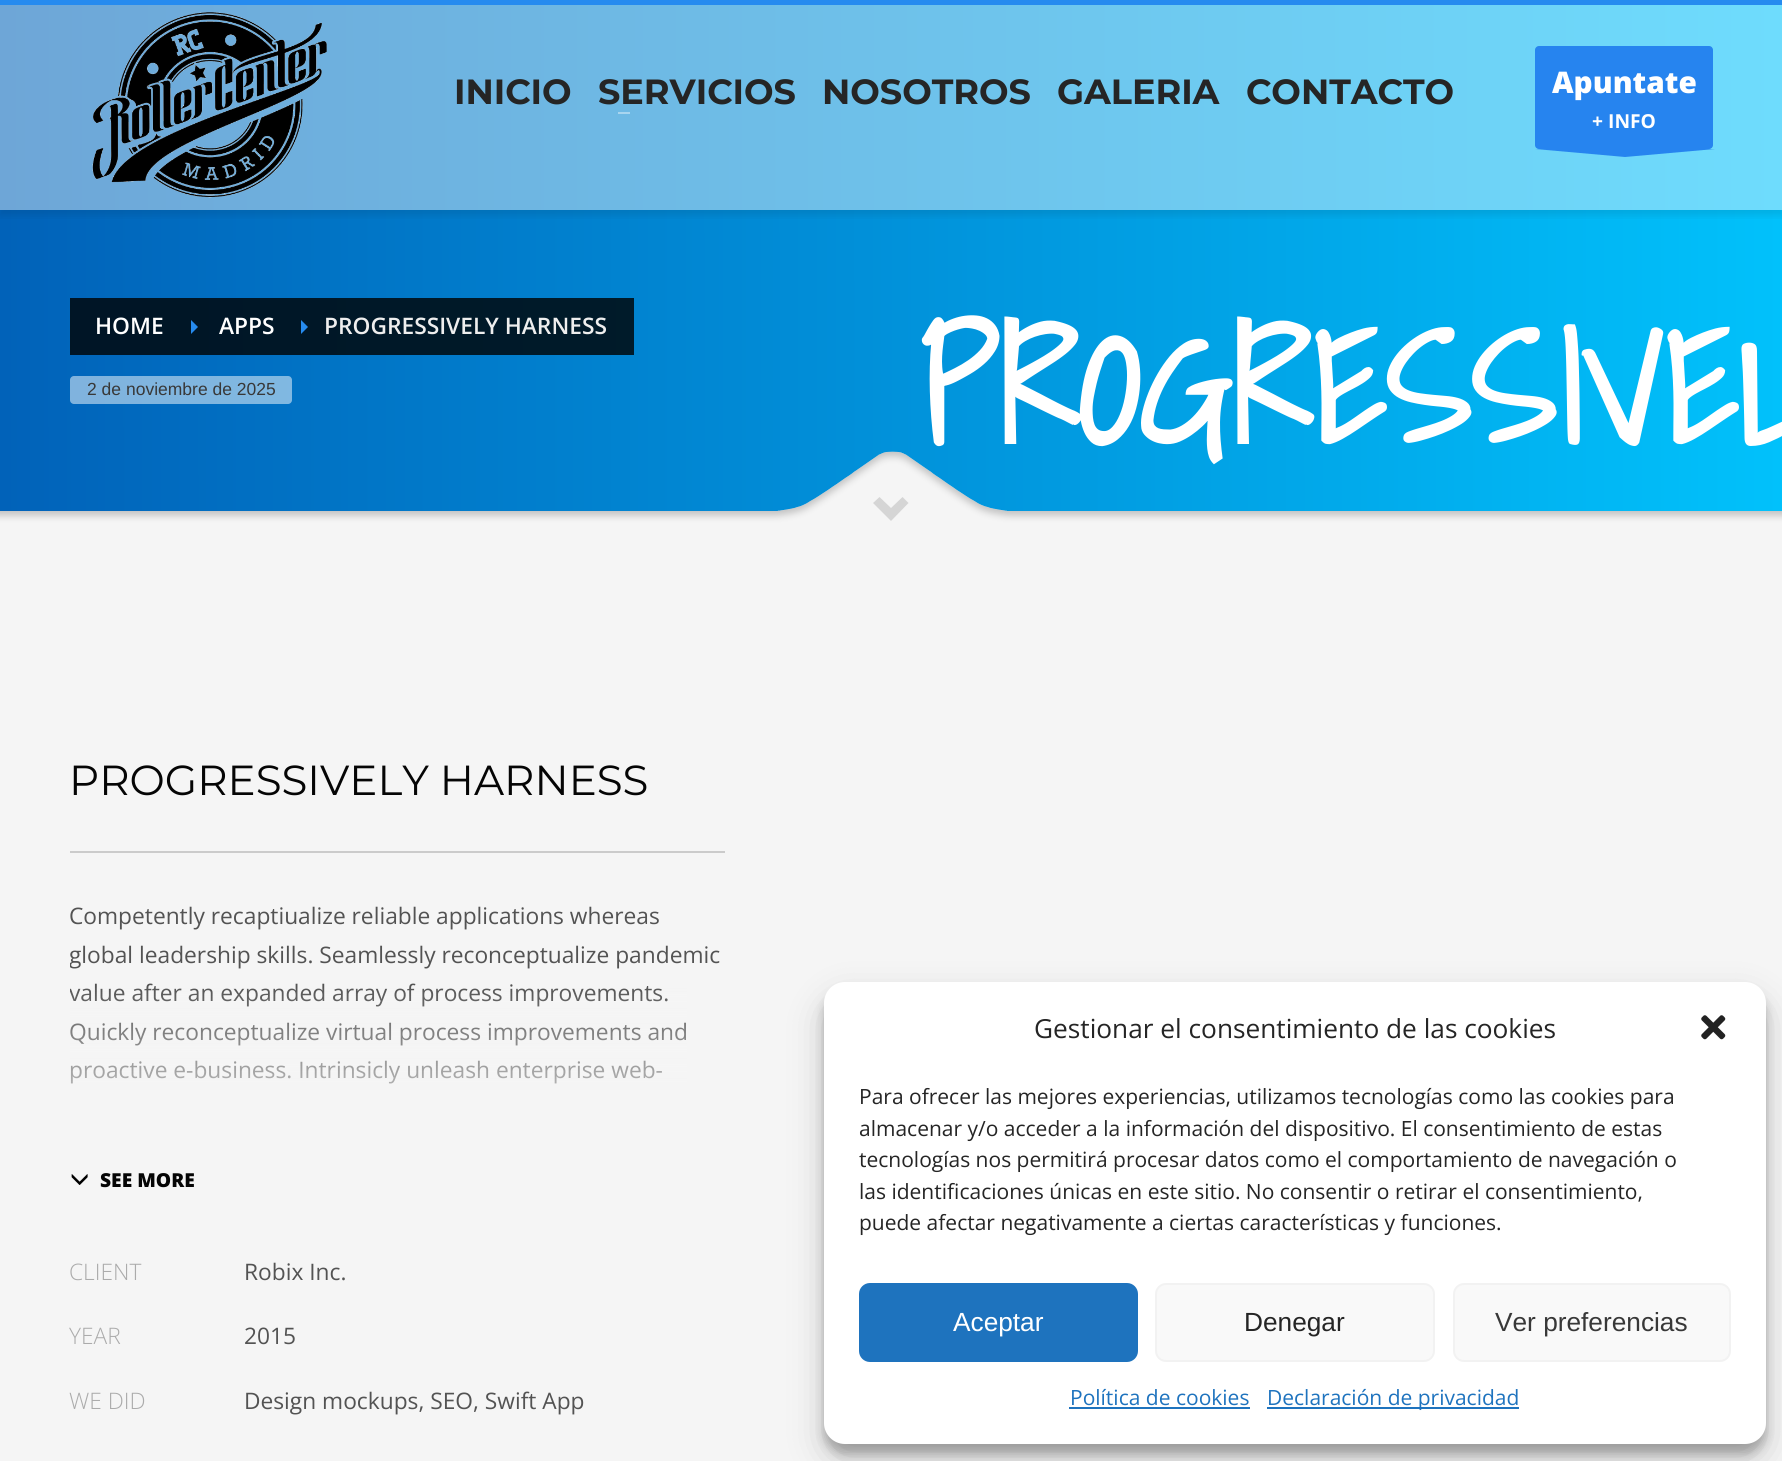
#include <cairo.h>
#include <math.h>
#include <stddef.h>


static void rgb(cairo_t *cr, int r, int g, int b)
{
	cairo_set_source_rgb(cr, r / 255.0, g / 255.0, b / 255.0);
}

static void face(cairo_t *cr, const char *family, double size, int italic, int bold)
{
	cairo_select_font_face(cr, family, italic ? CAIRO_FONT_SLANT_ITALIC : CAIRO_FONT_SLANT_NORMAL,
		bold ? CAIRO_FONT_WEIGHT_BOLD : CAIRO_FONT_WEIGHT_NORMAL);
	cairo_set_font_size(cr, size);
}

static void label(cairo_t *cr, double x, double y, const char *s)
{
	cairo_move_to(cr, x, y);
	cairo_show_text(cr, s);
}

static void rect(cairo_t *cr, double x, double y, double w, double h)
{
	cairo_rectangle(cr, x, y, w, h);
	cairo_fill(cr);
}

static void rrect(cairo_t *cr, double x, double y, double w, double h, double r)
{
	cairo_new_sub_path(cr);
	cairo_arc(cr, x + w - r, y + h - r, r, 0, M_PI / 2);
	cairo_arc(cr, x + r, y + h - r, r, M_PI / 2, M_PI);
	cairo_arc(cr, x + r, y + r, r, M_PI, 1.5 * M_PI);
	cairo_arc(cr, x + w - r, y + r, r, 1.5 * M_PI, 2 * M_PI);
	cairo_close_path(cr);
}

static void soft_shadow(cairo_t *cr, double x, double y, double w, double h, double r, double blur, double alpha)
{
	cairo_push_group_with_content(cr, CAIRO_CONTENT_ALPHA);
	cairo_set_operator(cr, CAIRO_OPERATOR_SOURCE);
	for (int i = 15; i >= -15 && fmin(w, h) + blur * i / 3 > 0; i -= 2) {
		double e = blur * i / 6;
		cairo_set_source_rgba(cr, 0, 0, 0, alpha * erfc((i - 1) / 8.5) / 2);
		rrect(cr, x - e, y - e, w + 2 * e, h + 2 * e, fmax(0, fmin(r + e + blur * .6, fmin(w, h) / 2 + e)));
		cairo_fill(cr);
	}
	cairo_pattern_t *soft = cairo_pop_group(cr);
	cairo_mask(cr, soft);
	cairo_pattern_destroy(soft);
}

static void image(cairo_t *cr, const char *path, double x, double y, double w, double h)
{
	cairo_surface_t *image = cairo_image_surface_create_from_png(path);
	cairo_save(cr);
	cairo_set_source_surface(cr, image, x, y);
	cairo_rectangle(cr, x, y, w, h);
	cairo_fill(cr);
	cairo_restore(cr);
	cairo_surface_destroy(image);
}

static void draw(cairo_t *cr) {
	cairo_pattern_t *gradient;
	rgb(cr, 245, 245, 245);
	cairo_paint(cr);
	gradient = cairo_pattern_create_linear(0, 263, 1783, 262);
	cairo_pattern_add_color_stop_rgba(gradient, 0, 0.004, 0.384, 0.725, 1);
	cairo_pattern_add_color_stop_rgba(gradient, 1, 0.004, 0.757, 0.984, 1);
	cairo_set_source(cr, gradient);
	cairo_pattern_destroy(gradient);
	rect(cr, 0, 210, 1782, 301);
	gradient = cairo_pattern_create_linear(0, 263, 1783, 262);
	cairo_pattern_add_color_stop_rgba(gradient, 0, 0.431, 0.651, 0.843, 1);
	cairo_pattern_add_color_stop_rgba(gradient, 1, 0.431, 0.863, 0.992, 1);
	cairo_set_source(cr, gradient);
	cairo_pattern_destroy(gradient);
	rect(cr, 0, 5, 1782, 205);
	cairo_save(cr);
	cairo_rectangle(cr, 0, 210, 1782, 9);
	cairo_clip(cr);
	rgb(cr, 0, 0, 0);
	soft_shadow(cr, 0, 5, 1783, 210, 0, 4.5, 0.1);
	cairo_restore(cr);
	rgb(cr, 38, 139, 239);
	rect(cr, 0, 0, 1782, 5);
	image(cr, "image0.png", 92, 12, 235, 186);
	face(cr, "Montserrat", 35, 0, 1);
	rgb(cr, 37, 37, 37);
	label(cr, 454, 104, "INICIO");
	label(cr, 598, 104, "SERVICIOS");
	rgb(cr, 168, 213, 239);
	rect(cr, 618, 112, 12, 2);
	rgb(cr, 37, 37, 37);
	label(cr, 822, 104, "NOSOTROS");
	label(cr, 1057, 104, "GALERIA");
	label(cr, 1246, 104, "CONTACTO");
	rgb(cr, 38, 132, 239);
	rrect(cr, 1535, 46, 178, 103, 4);
	cairo_fill(cr);
	face(cr, "Open Sans ExtraBold", 29.75, 0, 0);
	rgb(cr, 255, 255, 255);
	label(cr, 1552, 93, "Apuntate");
	face(cr, "Open Sans", 19.25, 0, 1);
	label(cr, 1592, 128, "+ INFO");
	rgb(cr, 38, 132, 239);
	cairo_set_fill_rule(cr, CAIRO_FILL_RULE_EVEN_ODD);
	cairo_new_path(cr);
	cairo_move_to(cr, 1715, 149);
	cairo_line_to(cr, 1625, 157);
	cairo_line_to(cr, 1535, 149);
	cairo_close_path(cr);
	cairo_fill(cr);
	gradient = cairo_pattern_create_linear(0, 263, 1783, 262);
	cairo_pattern_add_color_stop_rgba(gradient, 0, 0, 0.078, 0.145, 1);
	cairo_pattern_add_color_stop_rgba(gradient, 1, 0, 0.153, 0.196, 1);
	cairo_set_source(cr, gradient);
	cairo_pattern_destroy(gradient);
	rect(cr, 284, 298, 350, 57);
	rect(cr, 173, 298, 111, 57);
	rect(cr, 70, 298, 103, 57);
	face(cr, "Open Sans SemiBold", 22.75, 0, 0);
	rgb(cr, 255, 255, 255);
	label(cr, 95, 334, "HOME");
	rgb(cr, 38, 139, 239);
	cairo_set_fill_rule(cr, CAIRO_FILL_RULE_WINDING);
	cairo_new_path(cr);
	cairo_move_to(cr, 191, 334);
	cairo_line_to(cr, 191, 320);
	cairo_line_to(cr, 198, 327);
	cairo_close_path(cr);
	cairo_fill(cr);
	rgb(cr, 255, 255, 255);
	label(cr, 219, 334, "APPS");
	rgb(cr, 38, 139, 239);
	cairo_new_path(cr);
	cairo_move_to(cr, 301, 334);
	cairo_line_to(cr, 301, 320);
	cairo_line_to(cr, 308, 327);
	cairo_close_path(cr);
	cairo_fill(cr);
	rgb(cr, 238, 238, 238);
	label(cr, 324, 334, "PROGRESSIVELY HARNESS");
	cairo_set_source_rgba(cr, 1, 1, 1, 0.5);
	rrect(cr, 70, 376, 222, 28, 4);
	cairo_fill(cr);
	face(cr, "Liberation Sans", 17.5, 0, 0);
	rgb(cr, 56, 56, 56);
	label(cr, 87, 395, "2 de noviembre de 2025");
	face(cr, "Shadows Into Light", 157.5, 0, 1);
	rgb(cr, 255, 255, 255);
	label(cr, 918, 446, "PROGRESSIVEL");
	image(cr, "image1.png", 0, 451, 1782, 74);
	rgb(cr, 213, 213, 213);
	cairo_new_path(cr);
	cairo_move_to(cr, 908.5, 503);
	cairo_line_to(cr, 891, 521);
	cairo_line_to(cr, 873, 503);
	cairo_line_to(cr, 879.5, 497);
	cairo_line_to(cr, 891, 508);
	cairo_line_to(cr, 902.5, 497);
	cairo_close_path(cr);
	cairo_fill(cr);
	rgb(cr, 203, 203, 203);
	rect(cr, 70, 851, 655, 2);
	face(cr, "Montserrat", 42, 0, 0);
	rgb(cr, 5, 5, 5);
	label(cr, 69, 795, "PROGRESSIVELY HARNESS");
	face(cr, "Open Sans", 22.75, 0, 0);
	rgb(cr, 83, 83, 83);
	label(cr, 69, 924, "Competently recaptiualize reliable applications whereas");
	cairo_save(cr);
	cairo_rectangle(cr, 70, 896, 655, 263);
	cairo_clip(cr);
	label(cr, 69, 963, "global leadership skills. Seamlessly reconceptualize pandemic");
	label(cr, 69, 1001, "value after an expanded array of process improvements.");
	cairo_restore(cr);
	label(cr, 69, 1040, "Quickly reconceptualize virtual process improvements and");
	label(cr, 69, 1078, "proactive e-business. Intrinsicly unleash enterprise web-");
	gradient = cairo_pattern_create_linear(397, 984, 397, 1159);
	cairo_pattern_add_color_stop_rgba(gradient, 0, 0.961, 0.961, 0.961, 0);
	cairo_pattern_add_color_stop_rgba(gradient, 1, 0.961, 0.961, 0.961, 1);
	cairo_set_source(cr, gradient);
	cairo_pattern_destroy(gradient);
	rect(cr, 70, 988, 617, 96);
	image(cr, "image2.png", 71, 1174, 17, 11);
	face(cr, "Open Sans ExtraBold", 19.25, 0, 0);
	rgb(cr, 5, 5, 5);
	label(cr, 100, 1187, "SEE MORE");
	face(cr, "Open Sans Light", 22.75, 0, 0);
	rgb(cr, 171, 171, 171);
	label(cr, 69, 1280, "CLIENT");
	face(cr, "Open Sans", 22.75, 0, 0);
	rgb(cr, 83, 83, 83);
	label(cr, 244, 1280, "Robix Inc.");
	face(cr, "Open Sans Light", 22.75, 0, 0);
	rgb(cr, 171, 171, 171);
	label(cr, 69, 1344, "YEAR");
	face(cr, "Open Sans", 22.75, 0, 0);
	rgb(cr, 83, 83, 83);
	label(cr, 244, 1344, "2015");
	face(cr, "Open Sans Light", 22.75, 0, 0);
	rgb(cr, 171, 171, 171);
	label(cr, 69, 1409, "WE DID");
	face(cr, "Open Sans", 22.75, 0, 0);
	rgb(cr, 83, 83, 83);
	label(cr, 244, 1409, "Design mockups, SEO, Swift App");
	rgb(cr, 0, 0, 0);
	soft_shadow(cr, 824, 992, 942, 462, 21, 5, 0.23);
	soft_shadow(cr, 824, 999, 942, 462, 21, 17.5, 0.19);
	rgb(cr, 255, 255, 255);
	rrect(cr, 824, 982, 942, 462, 21);
	cairo_fill(cr);
	face(cr, "Open Sans", 26.25, 0, 0);
	rgb(cr, 37, 37, 37);
	label(cr, 1034, 1038, "Gestionar el consentimiento de las cookies");
	image(cr, "image3.png", 1701, 1015, 25, 25);
	face(cr, "Open Sans", 21, 0, 0);
	label(cr, 859, 1104, "Para ofrecer las mejores experiencias, utilizamos tecnologías como las cookies para");
	label(cr, 859, 1136, "almacenar y/o acceder a la información del dispositivo. El consentimiento de estas");
	label(cr, 859, 1167, "tecnologías nos permitirá procesar datos como el comportamiento de navegación o");
	label(cr, 859, 1199, "las identificaciones únicas en este sitio. No consentir o retirar el consentimiento,");
	label(cr, 859, 1230, "puede afectar negativamente a ciertas características y funciones.");
	rgb(cr, 30, 115, 190);
	rrect(cr, 860, 1284, 277, 77, 10);
	cairo_fill_preserve(cr);
	cairo_stroke(cr);
	face(cr, "Liberation Sans", 26.25, 0, 0);
	rgb(cr, 255, 255, 255);
	label(cr, 953, 1331, "Aceptar");
	rgb(cr, 249, 249, 249);
	rrect(cr, 1156, 1284, 278, 77, 10);
	cairo_fill_preserve(cr);
	rgb(cr, 242, 242, 242);
	cairo_stroke(cr);
	rgb(cr, 37, 37, 37);
	label(cr, 1244, 1331, "Denegar");
	rgb(cr, 249, 249, 249);
	rrect(cr, 1454, 1284, 276, 77, 10);
	cairo_fill_preserve(cr);
	rgb(cr, 242, 242, 242);
	cairo_stroke(cr);
	rgb(cr, 56, 56, 56);
	label(cr, 1495, 1331, "Ver preferencias");
	face(cr, "Open Sans", 21, 0, 0);
	rgb(cr, 30, 115, 190);
	label(cr, 1070, 1405, "Política de cookies");
	rect(cr, 1069, 1407, 181, 2);
	rect(cr, 1267, 1407, 252, 2);
	label(cr, 1267, 1405, "Declaración de privacidad");
}

int main(void) {
	cairo_surface_t *surface = cairo_image_surface_create(CAIRO_FORMAT_RGB24, 1782, 1461);
	cairo_t *cr = cairo_create(surface);
	cairo_font_options_t *options = cairo_font_options_create();
	cairo_font_options_set_hint_metrics(options, CAIRO_HINT_METRICS_OFF);
	cairo_font_options_set_hint_style(options, CAIRO_HINT_STYLE_NONE);
	cairo_set_font_options(cr, options);
	cairo_set_miter_limit(cr, 4);
	draw(cr);
	cairo_surface_write_to_png(surface, "render.png");
	cairo_font_options_destroy(options);
	cairo_destroy(cr);
	cairo_surface_destroy(surface);
	return 0;
}
